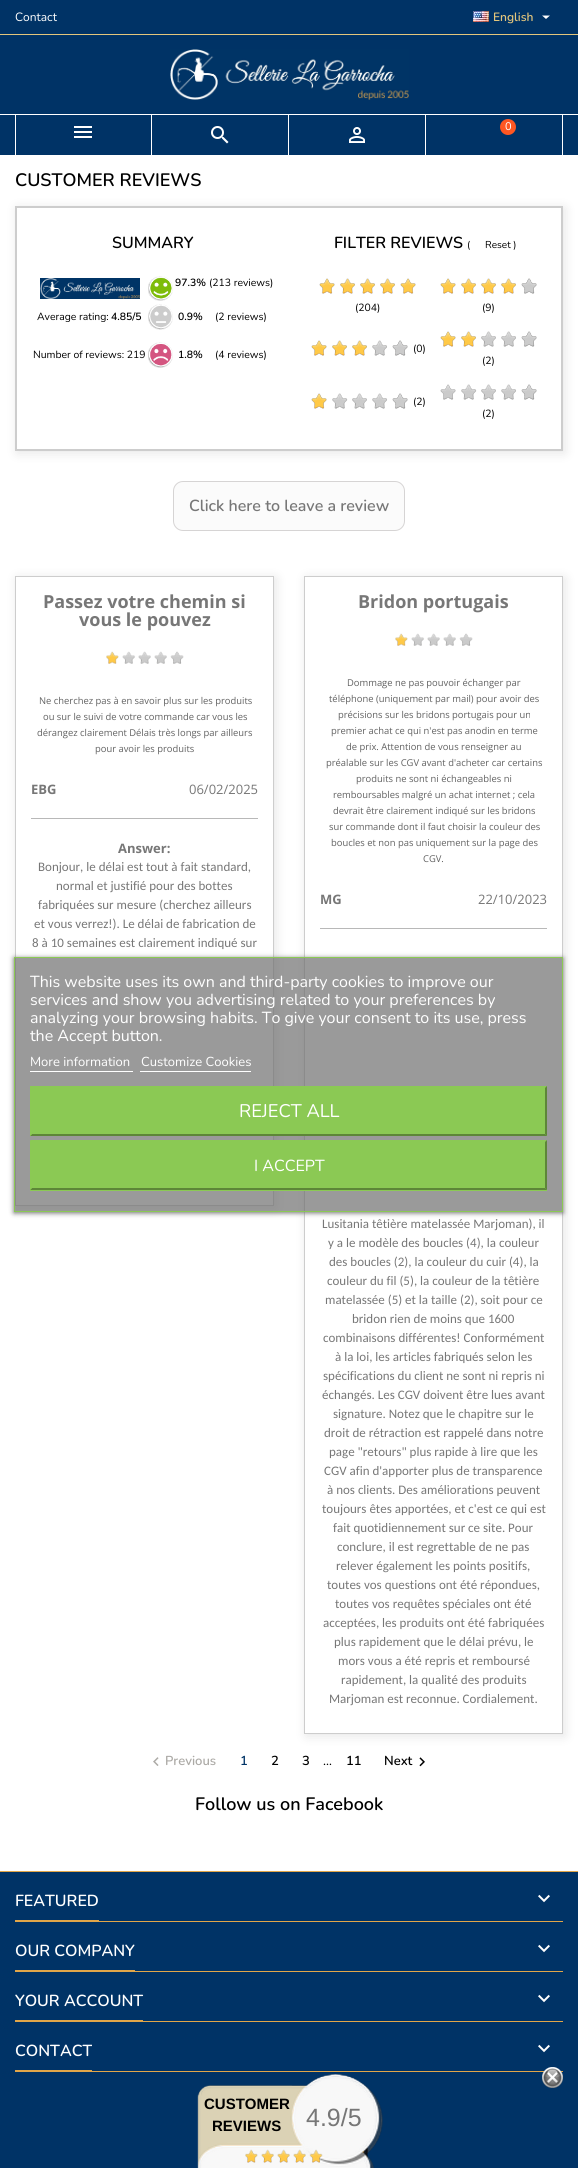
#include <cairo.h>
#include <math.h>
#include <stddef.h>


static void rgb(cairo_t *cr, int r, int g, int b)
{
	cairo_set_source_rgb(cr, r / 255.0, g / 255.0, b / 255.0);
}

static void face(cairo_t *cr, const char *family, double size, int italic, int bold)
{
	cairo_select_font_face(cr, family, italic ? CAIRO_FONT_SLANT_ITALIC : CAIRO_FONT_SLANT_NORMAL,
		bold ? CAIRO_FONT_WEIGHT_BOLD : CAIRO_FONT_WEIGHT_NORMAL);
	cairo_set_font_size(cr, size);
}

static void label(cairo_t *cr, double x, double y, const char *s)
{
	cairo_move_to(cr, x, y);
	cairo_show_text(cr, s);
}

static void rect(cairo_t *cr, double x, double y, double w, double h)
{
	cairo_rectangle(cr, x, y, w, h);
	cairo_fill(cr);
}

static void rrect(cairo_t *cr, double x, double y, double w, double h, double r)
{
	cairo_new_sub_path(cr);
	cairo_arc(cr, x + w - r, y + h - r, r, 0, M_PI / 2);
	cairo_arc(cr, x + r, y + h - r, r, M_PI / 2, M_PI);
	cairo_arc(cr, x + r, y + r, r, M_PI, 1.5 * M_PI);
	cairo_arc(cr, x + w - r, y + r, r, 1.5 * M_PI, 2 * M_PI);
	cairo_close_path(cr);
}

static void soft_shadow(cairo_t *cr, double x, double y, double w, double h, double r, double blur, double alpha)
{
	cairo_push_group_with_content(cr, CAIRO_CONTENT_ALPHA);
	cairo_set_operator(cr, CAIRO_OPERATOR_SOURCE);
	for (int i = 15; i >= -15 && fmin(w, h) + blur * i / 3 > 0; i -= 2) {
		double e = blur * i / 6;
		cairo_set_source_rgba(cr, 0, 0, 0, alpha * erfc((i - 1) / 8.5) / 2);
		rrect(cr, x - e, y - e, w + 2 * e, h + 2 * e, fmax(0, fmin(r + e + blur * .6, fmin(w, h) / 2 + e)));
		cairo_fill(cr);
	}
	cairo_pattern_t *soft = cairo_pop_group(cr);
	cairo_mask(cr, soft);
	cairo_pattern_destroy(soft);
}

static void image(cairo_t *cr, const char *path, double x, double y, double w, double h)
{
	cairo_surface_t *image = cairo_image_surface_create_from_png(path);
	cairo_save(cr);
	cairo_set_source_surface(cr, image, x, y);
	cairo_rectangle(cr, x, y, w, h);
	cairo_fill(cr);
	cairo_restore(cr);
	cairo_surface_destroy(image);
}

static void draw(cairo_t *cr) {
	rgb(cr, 255, 255, 255);
	cairo_paint(cr);
	rgb(cr, 0, 51, 102);
	rect(cr, 0, 0, 578, 34);
	rgb(cr, 228, 198, 124);
	rect(cr, 0, 34, 578, 1);
	face(cr, "Nunito", 12, 0, 0);
	rgb(cr, 255, 255, 255);
	label(cr, 15, 21, "Contact");
	image(cr, "image0.png", 473, 11, 16, 11);
	face(cr, "Nunito SemiBold", 12, 0, 0);
	rgb(cr, 228, 198, 124);
	label(cr, 493, 21, "English");
	rgb(cr, 255, 255, 255);
	cairo_new_path(cr);
	cairo_move_to(cr, 542, 15.5);
	cairo_line_to(cr, 550, 15.5);
	cairo_line_to(cr, 546, 19);
	cairo_close_path(cr);
	cairo_fill(cr);
	rgb(cr, 0, 51, 102);
	rect(cr, 0, 35, 578, 120);
	rgb(cr, 255, 255, 255);
	rect(cr, 74, 126, 18, 2);
	rect(cr, 74, 131, 18, 2);
	rect(cr, 74, 136, 18, 2);
	image(cr, "image1.png", 170, 49, 239, 51);
	rect(cr, 0, 114, 578, 1);
	rect(cr, 151, 115, 1, 40);
	rect(cr, 15, 115, 1, 40);
	rect(cr, 288, 115, 1, 40);
	image(cr, "image2.png", 211, 126, 18, 18);
	rect(cr, 425, 115, 1, 40);
	image(cr, "image3.png", 349, 127, 16, 16);
	rect(cr, 562, 115, 1, 40);
	rgb(cr, 255, 87, 34);
	cairo_arc(cr, 508, 127, 8, 0, 2 * M_PI);
	cairo_fill(cr);
	face(cr, "Nunito", 11, 0, 0);
	rgb(cr, 255, 255, 255);
	label(cr, 505, 130, "0");
	face(cr, "Nunito SemiBold", 18, 0, 0);
	rgb(cr, 0, 0, 0);
	label(cr, 15, 186, "CUSTOMER REVIEWS");
	cairo_save(cr);
	cairo_set_fill_rule(cr, CAIRO_FILL_RULE_EVEN_ODD);
	cairo_new_path(cr);
	cairo_move_to(cr, 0, 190);
	cairo_line_to(cr, 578, 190);
	cairo_line_to(cr, 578, 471);
	cairo_line_to(cr, 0, 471);
	cairo_close_path(cr);
	cairo_move_to(cr, 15, 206);
	cairo_line_to(cr, 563, 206);
	cairo_line_to(cr, 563, 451);
	cairo_line_to(cr, 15, 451);
	cairo_close_path(cr);
	cairo_clip(cr);
	rgb(cr, 0, 0, 0);
	soft_shadow(cr, 17, 208, 548, 245, 0, 5.5, 0.1);
	cairo_restore(cr);
	cairo_rectangle(cr, 16, 207, 546, 243);
	rgb(cr, 205, 205, 205);
	cairo_stroke(cr);
	face(cr, "Nunito SemiBold", 16, 0, 0);
	rgb(cr, 0, 0, 0);
	label(cr, 112, 248, "SUMMARY");
	image(cr, "image4.png", 40, 278, 100, 21);
	image(cr, "image5.png", 148, 276, 25, 25);
	face(cr, "Nunito SemiBold", 10.4, 0, 0);
	label(cr, 175, 286, "97.3%");
	face(cr, "Nunito", 10.4, 0, 0);
	label(cr, 209, 286, "(213 reviews)");
	label(cr, 37, 320, "Average rating:");
	face(cr, "Nunito SemiBold", 10.4, 0, 0);
	label(cr, 111, 320, "4.85/5");
	image(cr, "image6.png", 148, 304, 25, 26);
	label(cr, 178, 320, "0.9%");
	face(cr, "Nunito", 10.4, 0, 0);
	label(cr, 215, 320, "(2 reviews)");
	label(cr, 33, 358, "Number of reviews: 219");
	image(cr, "image7.png", 148, 342, 25, 26);
	face(cr, "Nunito SemiBold", 10.4, 0, 0);
	label(cr, 178, 358, "1.8%");
	face(cr, "Nunito", 10.4, 0, 0);
	label(cr, 215, 358, "(4 reviews)");
	face(cr, "Nunito SemiBold", 16, 0, 0);
	label(cr, 334, 248, "FILTER REVIEWS");
	face(cr, "Nunito", 10, 0, 0);
	label(cr, 467, 248, "(");
	label(cr, 485, 248, "Reset )");
	image(cr, "image8.png", 319, 278, 97, 16);
	face(cr, "Nunito", 10.4, 0, 0);
	label(cr, 355, 311, "(204)");
	image(cr, "image9.png", 440, 278, 97, 16);
	label(cr, 482, 311, "(9)");
	image(cr, "image10.png", 311, 340, 97, 16);
	label(cr, 413, 352, "(0)");
	image(cr, "image11.png", 440, 331, 97, 16);
	label(cr, 482, 364, "(2)");
	image(cr, "image12.png", 311, 393, 97, 16);
	label(cr, 413, 405, "(2)");
	image(cr, "image13.png", 440, 384, 97, 16);
	label(cr, 482, 417, "(2)");
	rgb(cr, 251, 251, 251);
	rrect(cr, 173.5, 481.5, 231, 49, 9.5);
	cairo_fill_preserve(cr);
	rgb(cr, 214, 212, 212);
	cairo_set_line_width(cr, 1);
	cairo_stroke(cr);
	face(cr, "Nunito SemiBold", 16, 0, 0);
	rgb(cr, 119, 119, 119);
	label(cr, 189, 511, "Click here to leave a review");
	cairo_save(cr);
	cairo_set_fill_rule(cr, CAIRO_FILL_RULE_EVEN_ODD);
	cairo_new_path(cr);
	cairo_move_to(cr, 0, 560);
	cairo_line_to(cr, 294, 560);
	cairo_line_to(cr, 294, 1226);
	cairo_line_to(cr, 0, 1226);
	cairo_close_path(cr);
	cairo_move_to(cr, 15, 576);
	cairo_line_to(cr, 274, 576);
	cairo_line_to(cr, 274, 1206);
	cairo_line_to(cr, 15, 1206);
	cairo_close_path(cr);
	cairo_clip(cr);
	rgb(cr, 0, 0, 0);
	soft_shadow(cr, 17, 578, 259, 630, 0, 5.5, 0.1);
	cairo_restore(cr);
	cairo_rectangle(cr, 15.5, 576.5, 258, 629);
	rgb(cr, 205, 205, 205);
	cairo_stroke(cr);
	face(cr, "Open Sans", 18, 0, 1);
	rgb(cr, 119, 119, 119);
	label(cr, 43, 608, "Passez votre chemin si");
	label(cr, 79, 626, "vous le pouvez");
	image(cr, "image14.png", 106, 651, 78, 13);
	face(cr, "Open Sans", 9.4, 0, 0);
	rgb(cr, 98, 98, 98);
	label(cr, 39, 704, "Ne cherchez pas à en savoir plus sur les produits");
	label(cr, 43, 720, "ou sur le suivi de votre commande car vous les");
	label(cr, 37, 736, "dérangez clairement Délais très longs par ailleurs");
	label(cr, 95, 752, "pour avoir les produits");
	face(cr, "Open Sans", 13, 0, 1);
	rgb(cr, 119, 119, 119);
	label(cr, 31, 794, "EBG");
	face(cr, "Open Sans", 13, 0, 0);
	label(cr, 189, 794, "06/02/2025");
	rgb(cr, 184, 184, 184);
	rect(cr, 31, 818, 227, 1);
	face(cr, "Open Sans", 13, 0, 1);
	rgb(cr, 119, 119, 119);
	label(cr, 118, 853, "Answer:");
	face(cr, "Carlito", 13, 0, 0);
	label(cr, 38, 871, "Bonjour, le délai est tout à fait standard,");
	label(cr, 56, 890, "normal et justifié pour des bottes");
	label(cr, 38, 909, "fabriquées sur mesure (cherchez ailleurs");
	label(cr, 34, 928, "et vous verrez!). Le délai de fabrication de");
	label(cr, 32, 947, "8 à 10 semaines est clairement indiqué sur");
	cairo_save(cr);
	cairo_set_fill_rule(cr, CAIRO_FILL_RULE_EVEN_ODD);
	cairo_new_path(cr);
	cairo_move_to(cr, 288, 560);
	cairo_line_to(cr, 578, 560);
	cairo_line_to(cr, 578, 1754);
	cairo_line_to(cr, 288, 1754);
	cairo_close_path(cr);
	cairo_move_to(cr, 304, 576);
	cairo_line_to(cr, 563, 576);
	cairo_line_to(cr, 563, 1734);
	cairo_line_to(cr, 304, 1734);
	cairo_close_path(cr);
	cairo_clip(cr);
	rgb(cr, 0, 0, 0);
	soft_shadow(cr, 306, 578, 259, 1158, 0, 5.5, 0.1);
	cairo_restore(cr);
	cairo_rectangle(cr, 304.5, 576.5, 258, 1157);
	rgb(cr, 205, 205, 205);
	cairo_stroke(cr);
	face(cr, "Open Sans", 18, 0, 1);
	rgb(cr, 119, 119, 119);
	label(cr, 358, 608, "Bridon portugais");
	image(cr, "image14.png", 395, 633, 78, 13);
	face(cr, "Open Sans", 9.4, 0, 0);
	rgb(cr, 98, 98, 98);
	label(cr, 347, 686, "Dommage ne pas pouvoir échanger par");
	label(cr, 329, 702, "téléphone (uniquement par mail) pour avoir des");
	label(cr, 338, 718, "précisions sur les bridons portugais pour un");
	label(cr, 331, 734, "premier achat ce qui n'est pas anodin en terme");
	label(cr, 346, 750, "de prix. Attention de vous renseigner au");
	label(cr, 326, 766, "préalable sur les CGV avant d'acheter car certains");
	label(cr, 356, 782, "produits ne sont ni échangeables ni");
	label(cr, 333, 798, "remboursables malgré un achat internet ; cela");
	label(cr, 333, 814, "devrait être clairement indiqué sur les bridons");
	label(cr, 329, 830, "sur commande dont il faut choisir la couleur des");
	label(cr, 331, 846, "boucles et non pas uniquement sur la page des");
	label(cr, 423, 862, "CGV.");
	face(cr, "Open Sans", 13, 0, 1);
	rgb(cr, 119, 119, 119);
	label(cr, 320, 904, "MG");
	face(cr, "Open Sans", 13, 0, 0);
	label(cr, 478, 904, "22/10/2023");
	rgb(cr, 184, 184, 184);
	rect(cr, 320, 928, 227, 1);
	face(cr, "Carlito", 13, 0, 0);
	rgb(cr, 119, 119, 119);
	label(cr, 322, 1228, "Lusitania têtière matelassée Marjoman), il");
	label(cr, 328, 1247, "y a le modèle des boucles (4), la couleur");
	label(cr, 329, 1266, "des boucles (2), la couleur du cuir (4), la");
	label(cr, 327, 1285, "couleur du fil (5), la couleur de la têtière");
	label(cr, 325, 1304, "matelassée (5) et la taille (2), soit pour ce");
	label(cr, 352, 1323, "bridon rien de moins que 1600");
	label(cr, 323, 1342, "combinaisons différentes! Conformément");
	label(cr, 335, 1361, "à la loi, les articles fabriqués selon les");
	label(cr, 323, 1380, "spécifications du client ne sont ni repris ni");
	label(cr, 322, 1399, "échangés. Les CGV doivent être lues avant");
	label(cr, 333, 1418, "signature. Notez que le chapitre sur le");
	label(cr, 324, 1437, "droit de rétraction est rappelé dans notre");
	label(cr, 329, 1456, "page \"retours\" plus rapide à lire que les");
	label(cr, 324, 1475, "CGV afin d'apporter plus de transparence");
	label(cr, 327, 1494, "à nos clients. Des améliorations peuvent");
	label(cr, 322, 1513, "toujours êtes apportées, et c'est ce qui est");
	label(cr, 333, 1532, "fait quotidiennement sur ce site. Pour");
	label(cr, 337, 1551, "conclure, il est regrettable de ne pas");
	label(cr, 336, 1570, "relever également les points positifs,");
	label(cr, 327, 1589, "toutes vos questions ont été répondues,");
	label(cr, 335, 1608, "toutes vos requêtes spéciales ont été");
	label(cr, 323, 1627, "acceptées, les produits ont été fabriquées");
	label(cr, 334, 1646, "plus rapidement que le délai prévu, le");
	label(cr, 338, 1665, "mors vous a été repris et remboursé");
	label(cr, 341, 1684, "rapidement, la qualité des produits");
	label(cr, 329, 1703, "Marjoman est reconnue. Cordialement.");
	image(cr, "image15.png", 153, 1757, 6, 9);
	face(cr, "Nunito SemiBold", 13, 0, 0);
	rgb(cr, 172, 170, 166);
	label(cr, 165, 1765, "Previous");
	rgb(cr, 0, 51, 102);
	label(cr, 240, 1765, "1");
	rgb(cr, 0, 0, 0);
	label(cr, 271, 1765, "2");
	label(cr, 302, 1765, "3");
	face(cr, "Nunito", 13, 0, 0);
	label(cr, 323, 1765, "…");
	face(cr, "Nunito SemiBold", 13, 0, 0);
	label(cr, 346, 1765, "11");
	label(cr, 384, 1765, "Next");
	image(cr, "image16.png", 419, 1757, 6, 10);
	face(cr, "Nunito SemiBold", 18, 0, 0);
	label(cr, 195, 1810, "Follow us on Facebook");
	rgb(cr, 0, 51, 102);
	rect(cr, 0, 1872, 578, 296);
	rgb(cr, 225, 166, 73);
	rect(cr, 0, 1871, 578, 1);
	cairo_save(cr);
	cairo_set_fill_rule(cr, CAIRO_FILL_RULE_EVEN_ODD);
	cairo_new_path(cr);
	cairo_move_to(cr, 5, 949);
	cairo_line_to(cr, 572, 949);
	cairo_line_to(cr, 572, 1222);
	cairo_line_to(cr, 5, 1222);
	cairo_close_path(cr);
	cairo_move_to(cr, 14, 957);
	cairo_line_to(cr, 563, 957);
	cairo_line_to(cr, 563, 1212);
	cairo_line_to(cr, 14, 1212);
	cairo_close_path(cr);
	cairo_clip(cr);
	rgb(cr, 112, 112, 112);
	soft_shadow(cr, 14, 958, 549, 255, 0, 2.5, 1);
	cairo_restore(cr);
	cairo_set_source_rgba(cr, 0.439, 0.439, 0.439, 0.7);
	cairo_rectangle(cr, 14.5, 957.5, 548, 254);
	cairo_fill_preserve(cr);
	rgb(cr, 139, 201, 84);
	cairo_stroke(cr);
	face(cr, "Nunito", 16, 0, 0);
	rgb(cr, 255, 255, 255);
	label(cr, 30, 987, "This website uses its own and third-party cookies to improve our");
	label(cr, 30, 1005, "services and show you advertising related to your preferences by");
	label(cr, 30, 1023, "analyzing your browsing habits. To give your consent to its use, press");
	label(cr, 30, 1041, "the Accept button.");
	face(cr, "Nunito", 13, 0, 0);
	label(cr, 30, 1066, "More information");
	rect(cr, 30, 1071, 103, 1);
	label(cr, 141, 1066, "Customize Cookies");
	rect(cr, 140, 1071, 111, 1);
	rgb(cr, 139, 201, 84);
	rect(cr, 30, 1086, 517, 50);
	rgb(cr, 93, 134, 56);
	cairo_new_path(cr);
	cairo_move_to(cr, 547, 1086);
	cairo_line_to(cr, 547, 1136);
	cairo_line_to(cr, 545, 1134);
	cairo_line_to(cr, 545, 1088);
	cairo_close_path(cr);
	cairo_fill(cr);
	cairo_new_path(cr);
	cairo_move_to(cr, 547, 1136);
	cairo_line_to(cr, 30, 1136);
	cairo_line_to(cr, 32, 1134);
	cairo_line_to(cr, 545, 1134);
	cairo_close_path(cr);
	cairo_fill(cr);
	rgb(cr, 139, 201, 84);
	cairo_new_path(cr);
	cairo_move_to(cr, 30, 1136);
	cairo_line_to(cr, 30, 1086);
	cairo_line_to(cr, 32, 1088);
	cairo_line_to(cr, 32, 1134);
	cairo_close_path(cr);
	cairo_fill(cr);
	face(cr, "Nunito", 18.25, 0, 0);
	rgb(cr, 255, 255, 255);
	label(cr, 239, 1117, "REJECT ALL");
	rgb(cr, 139, 201, 84);
	rect(cr, 30, 1141, 517, 50);
	cairo_new_path(cr);
	cairo_move_to(cr, 30, 1140);
	cairo_line_to(cr, 547, 1140);
	cairo_line_to(cr, 545, 1142);
	cairo_line_to(cr, 32, 1142);
	cairo_close_path(cr);
	cairo_fill(cr);
	rgb(cr, 93, 134, 56);
	cairo_new_path(cr);
	cairo_move_to(cr, 547, 1140);
	cairo_line_to(cr, 547, 1190);
	cairo_line_to(cr, 545, 1188);
	cairo_line_to(cr, 545, 1142);
	cairo_close_path(cr);
	cairo_fill(cr);
	cairo_new_path(cr);
	cairo_move_to(cr, 547, 1190);
	cairo_line_to(cr, 30, 1190);
	cairo_line_to(cr, 32, 1188);
	cairo_line_to(cr, 545, 1188);
	cairo_close_path(cr);
	cairo_fill(cr);
	rgb(cr, 139, 201, 84);
	cairo_new_path(cr);
	cairo_move_to(cr, 30, 1190);
	cairo_line_to(cr, 30, 1140);
	cairo_line_to(cr, 32, 1142);
	cairo_line_to(cr, 32, 1188);
	cairo_close_path(cr);
	cairo_fill(cr);
	face(cr, "Nunito", 16, 0, 0);
	rgb(cr, 255, 255, 255);
	label(cr, 254, 1171, "I ACCEPT");
	rgb(cr, 225, 166, 73);
	rect(cr, 99, 1921, 464, 1);
	rect(cr, 15, 1920, 84, 2);
	face(cr, "Nunito SemiBold", 16, 0, 0);
	rgb(cr, 255, 255, 255);
	label(cr, 15, 1906, "FEATURED");
	image(cr, "image17.png", 538, 1894, 12, 9);
	rgb(cr, 225, 166, 73);
	rect(cr, 135, 1971, 428, 1);
	rect(cr, 15, 1970, 120, 2);
	rgb(cr, 255, 255, 255);
	label(cr, 15, 1956, "OUR COMPANY");
	image(cr, "image17.png", 538, 1944, 12, 9);
	rgb(cr, 225, 166, 73);
	rect(cr, 143, 2021, 420, 1);
	rect(cr, 15, 2020, 128, 2);
	rgb(cr, 255, 255, 255);
	label(cr, 15, 2006, "YOUR ACCOUNT");
	image(cr, "image17.png", 538, 1994, 12, 9);
	rgb(cr, 225, 166, 73);
	rect(cr, 92, 2071, 471, 1);
	rect(cr, 15, 2070, 77, 2);
	rgb(cr, 255, 255, 255);
	label(cr, 15, 2056, "CONTACT");
	image(cr, "image17.png", 538, 2044, 12, 9);
	image(cr, "image18.png", 542, 2067, 21, 21);
	image(cr, "image19.png", 197, 2074, 186, 94);
	face(cr, "Liberation Sans", 15, 0, 1);
	rgb(cr, 0, 0, 0);
	label(cr, 204, 2109, "CUSTOMER");
	label(cr, 212, 2131, "REVIEWS");
	face(cr, "Liberation Sans", 25, 0, 0);
	rgb(cr, 119, 119, 119);
	label(cr, 306, 2126, "4.9/5");
	image(cr, "image20.png", 245, 2149, 78, 14);
}

int main(void) {
	cairo_surface_t *surface = cairo_image_surface_create(CAIRO_FORMAT_RGB24, 578, 2168);
	cairo_t *cr = cairo_create(surface);
	cairo_font_options_t *options = cairo_font_options_create();
	cairo_font_options_set_hint_metrics(options, CAIRO_HINT_METRICS_OFF);
	cairo_font_options_set_hint_style(options, CAIRO_HINT_STYLE_NONE);
	cairo_set_font_options(cr, options);
	cairo_set_miter_limit(cr, 4);
	draw(cr);
	cairo_surface_write_to_png(surface, "render.png");
	cairo_font_options_destroy(options);
	cairo_destroy(cr);
	cairo_surface_destroy(surface);
	return 0;
}
